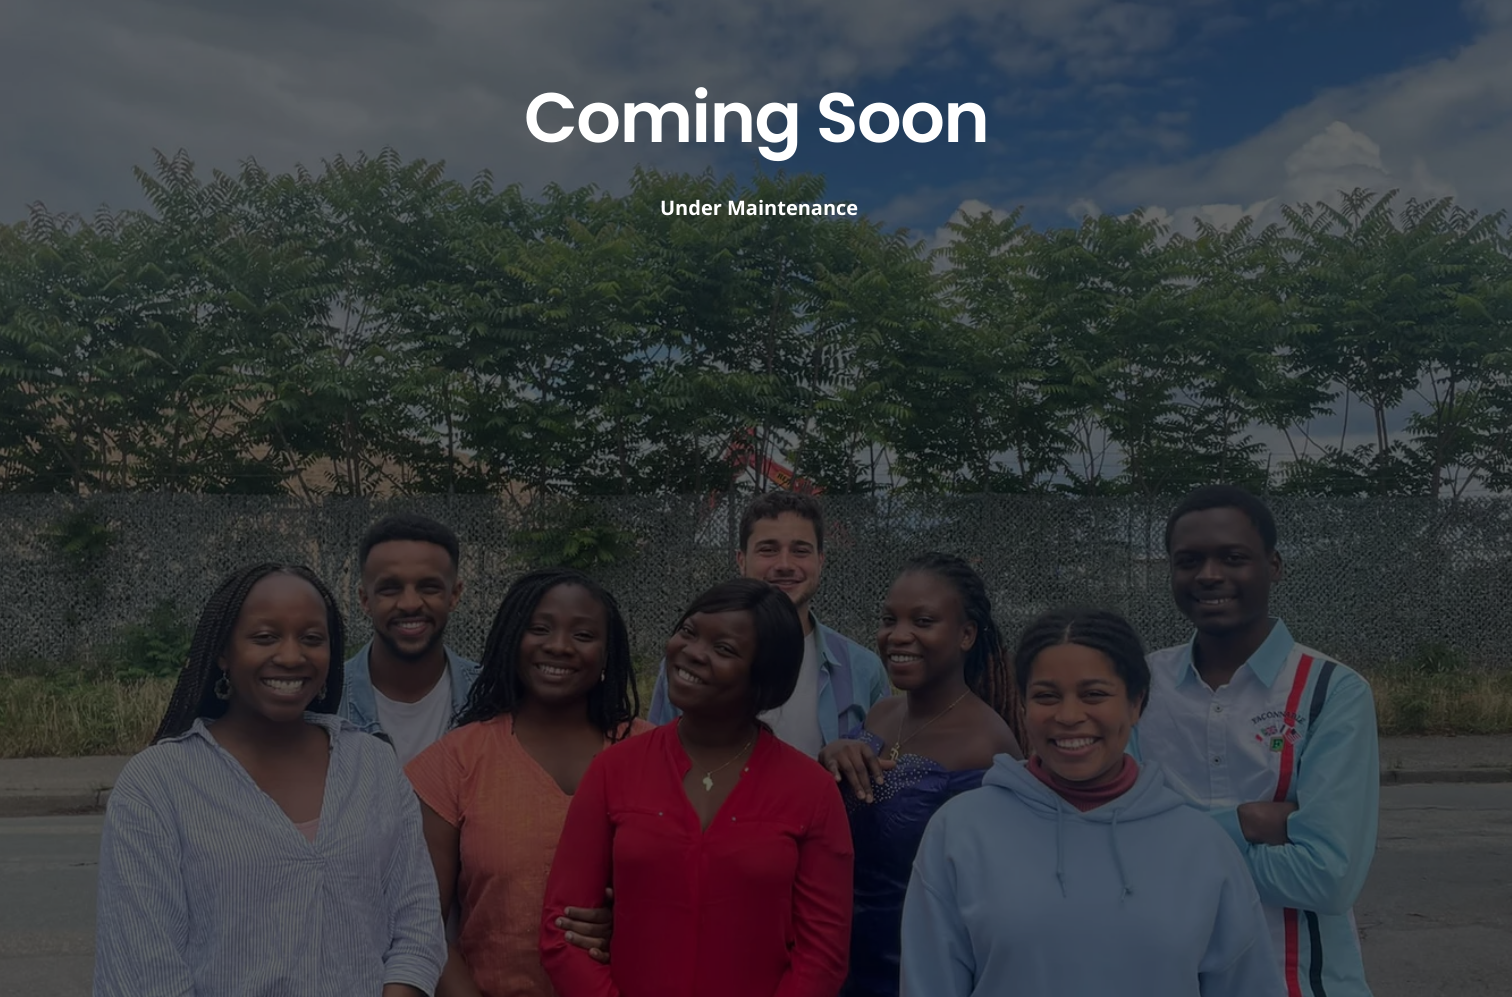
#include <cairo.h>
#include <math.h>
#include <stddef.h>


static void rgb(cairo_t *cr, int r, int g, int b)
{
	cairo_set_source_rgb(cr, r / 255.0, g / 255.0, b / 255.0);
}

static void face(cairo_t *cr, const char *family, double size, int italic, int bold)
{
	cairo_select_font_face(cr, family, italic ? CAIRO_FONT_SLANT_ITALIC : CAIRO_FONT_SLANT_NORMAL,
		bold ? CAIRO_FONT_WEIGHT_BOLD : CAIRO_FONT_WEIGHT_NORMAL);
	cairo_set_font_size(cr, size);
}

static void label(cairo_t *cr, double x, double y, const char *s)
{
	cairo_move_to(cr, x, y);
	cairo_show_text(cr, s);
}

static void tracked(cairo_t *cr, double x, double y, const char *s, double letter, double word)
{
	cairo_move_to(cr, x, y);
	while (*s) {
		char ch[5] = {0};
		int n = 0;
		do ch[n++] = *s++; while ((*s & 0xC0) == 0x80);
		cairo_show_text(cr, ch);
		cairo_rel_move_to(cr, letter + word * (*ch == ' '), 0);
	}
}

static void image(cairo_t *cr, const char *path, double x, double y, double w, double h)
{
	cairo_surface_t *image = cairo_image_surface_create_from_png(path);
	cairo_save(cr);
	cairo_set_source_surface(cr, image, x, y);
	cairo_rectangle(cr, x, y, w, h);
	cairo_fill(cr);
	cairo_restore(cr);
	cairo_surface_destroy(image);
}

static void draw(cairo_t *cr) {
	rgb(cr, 255, 255, 255);
	cairo_paint(cr);
	image(cr, "image0.png", 0, 0, 1512, 997);
	face(cr, "Poppins SemiBold", 70, 0, 0);
	rgb(cr, 255, 255, 255);
	tracked(cr, 524, 142, "Coming Soon", -1.4, 0);
	face(cr, "Open Sans", 20, 0, 1);
	label(cr, 660, 215, "Under Maintenance");
}

int main(void) {
	cairo_surface_t *surface = cairo_image_surface_create(CAIRO_FORMAT_RGB24, 1512, 997);
	cairo_t *cr = cairo_create(surface);
	cairo_font_options_t *options = cairo_font_options_create();
	cairo_font_options_set_hint_metrics(options, CAIRO_HINT_METRICS_OFF);
	cairo_font_options_set_hint_style(options, CAIRO_HINT_STYLE_NONE);
	cairo_set_font_options(cr, options);
	cairo_set_miter_limit(cr, 4);
	draw(cr);
	cairo_surface_write_to_png(surface, "render.png");
	cairo_font_options_destroy(options);
	cairo_destroy(cr);
	cairo_surface_destroy(surface);
	return 0;
}
